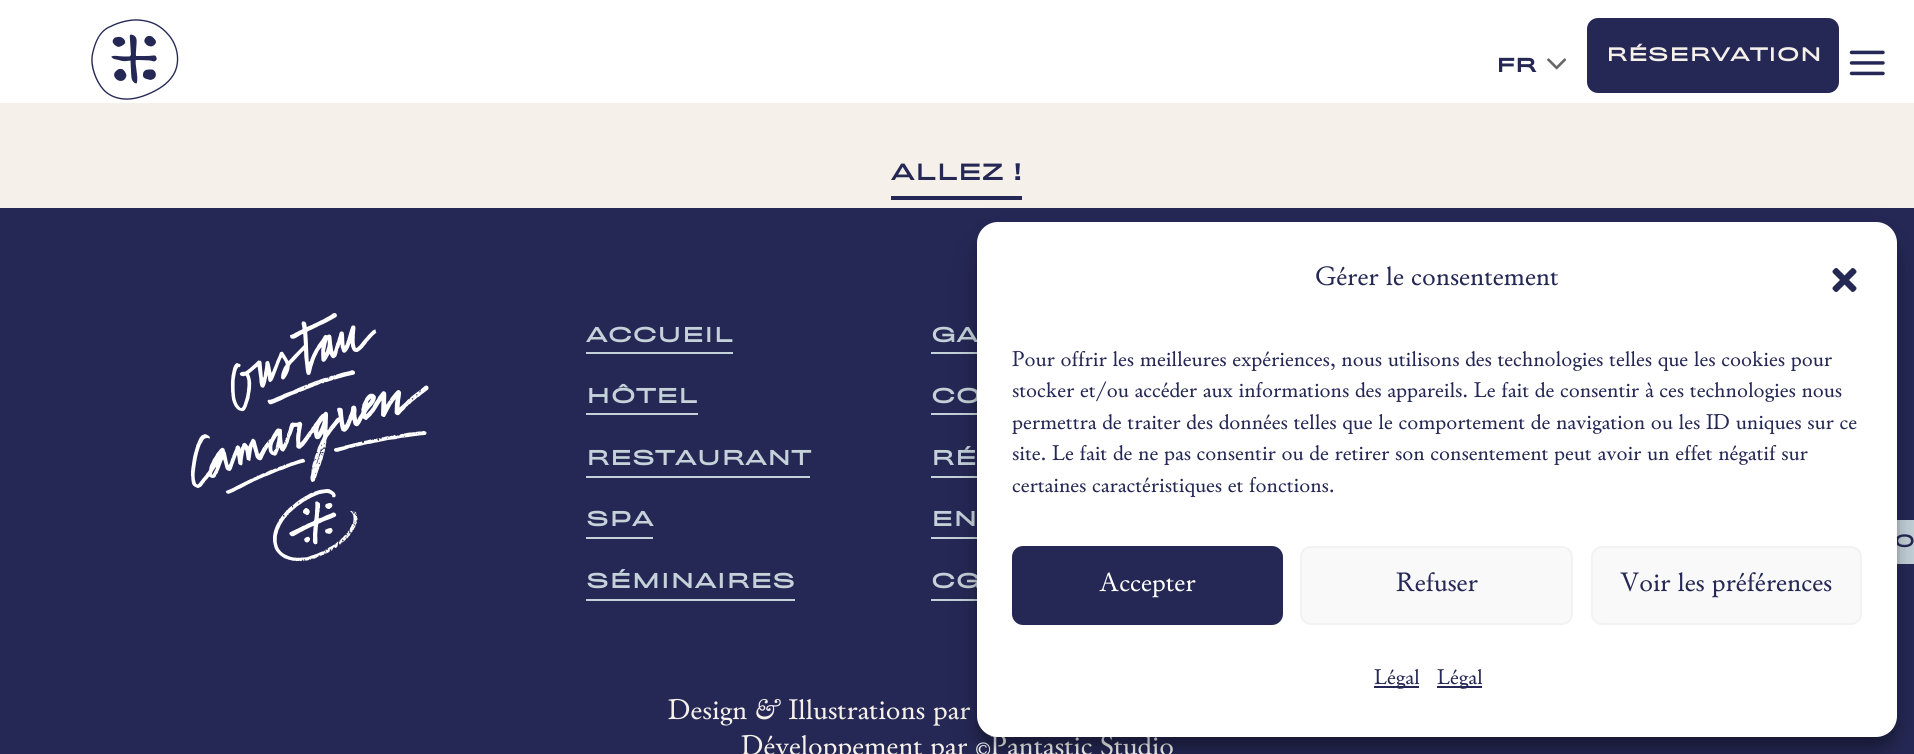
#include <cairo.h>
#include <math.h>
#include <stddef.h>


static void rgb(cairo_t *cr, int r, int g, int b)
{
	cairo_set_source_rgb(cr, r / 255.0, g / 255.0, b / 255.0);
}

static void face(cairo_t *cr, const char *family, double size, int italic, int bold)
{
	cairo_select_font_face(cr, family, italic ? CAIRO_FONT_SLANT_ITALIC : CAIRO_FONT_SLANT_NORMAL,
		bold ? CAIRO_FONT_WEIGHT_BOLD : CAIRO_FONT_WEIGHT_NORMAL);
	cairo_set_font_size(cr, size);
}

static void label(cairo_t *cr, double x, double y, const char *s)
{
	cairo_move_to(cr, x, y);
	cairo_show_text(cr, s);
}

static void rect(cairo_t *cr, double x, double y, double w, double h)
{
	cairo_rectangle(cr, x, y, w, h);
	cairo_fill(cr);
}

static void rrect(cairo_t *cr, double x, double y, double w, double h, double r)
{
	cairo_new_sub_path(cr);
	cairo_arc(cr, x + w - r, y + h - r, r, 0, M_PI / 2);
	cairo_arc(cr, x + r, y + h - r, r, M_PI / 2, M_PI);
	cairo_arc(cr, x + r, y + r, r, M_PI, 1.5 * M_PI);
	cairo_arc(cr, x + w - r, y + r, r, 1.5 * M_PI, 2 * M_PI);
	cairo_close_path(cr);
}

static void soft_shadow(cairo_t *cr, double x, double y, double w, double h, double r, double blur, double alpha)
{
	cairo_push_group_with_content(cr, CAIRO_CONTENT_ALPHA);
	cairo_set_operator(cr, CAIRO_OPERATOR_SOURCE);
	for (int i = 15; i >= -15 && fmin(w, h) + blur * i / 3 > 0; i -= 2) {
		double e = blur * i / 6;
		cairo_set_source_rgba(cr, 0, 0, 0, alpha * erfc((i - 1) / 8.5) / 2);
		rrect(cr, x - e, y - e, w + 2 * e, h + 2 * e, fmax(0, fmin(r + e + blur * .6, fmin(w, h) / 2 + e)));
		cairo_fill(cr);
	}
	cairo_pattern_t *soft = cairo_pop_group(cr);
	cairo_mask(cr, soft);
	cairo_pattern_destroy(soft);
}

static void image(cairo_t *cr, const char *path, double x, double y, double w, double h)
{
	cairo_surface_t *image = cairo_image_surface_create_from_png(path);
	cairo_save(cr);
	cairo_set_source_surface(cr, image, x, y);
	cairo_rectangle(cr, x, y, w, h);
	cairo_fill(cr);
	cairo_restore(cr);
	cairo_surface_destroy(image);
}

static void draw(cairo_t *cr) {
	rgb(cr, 245, 240, 234);
	cairo_paint(cr);
	rgb(cr, 255, 255, 255);
	rect(cr, 0, 0, 1914, 103);
	image(cr, "image0.png", 91, 19, 88, 81);
	face(cr, "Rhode", 17.5, 0, 1);
	rgb(cr, 37, 40, 85);
	label(cr, 1496, 72, "FR");
	image(cr, "image1.png", 1547, 58, 19, 12);
	rrect(cr, 1587, 18, 252, 75, 11);
	cairo_fill(cr);
	face(cr, "Rhode Medium", 17.5, 0, 0);
	rgb(cr, 245, 240, 234);
	label(cr, 1606, 61, "RÉSERVATION");
	image(cr, "image2.png", 1849, 50, 36, 26);
	rgb(cr, 37, 40, 85);
	rect(cr, 891, 196, 131, 4);
	face(cr, "Rhode Medium", 21, 0, 0);
	label(cr, 891, 180, "ALLEZ !");
	rect(cr, 0, 208, 1914, 546);
	image(cr, "image3.png", 191, 313, 238, 249);
	face(cr, "Rhode Medium", 19.25, 0, 0);
	rgb(cr, 197, 210, 218);
	label(cr, 586, 342, "ACCUEIL");
	rect(cr, 586, 352, 147, 2);
	label(cr, 931, 342, "GA");
	rect(cr, 931, 352, 46, 2);
	label(cr, 586, 403, "HÔTEL");
	rect(cr, 586, 413, 112, 2);
	label(cr, 931, 403, "CO");
	rect(cr, 931, 413, 46, 2);
	label(cr, 586, 465, "RESTAURANT");
	rect(cr, 586, 476, 224, 2);
	label(cr, 931, 465, "RÉ");
	rect(cr, 931, 476, 46, 2);
	label(cr, 586, 526, "SPA");
	rect(cr, 586, 537, 67, 2);
	label(cr, 931, 526, "EN");
	rect(cr, 931, 537, 46, 2);
	label(cr, 586, 588, "SÉMINAIRES");
	rect(cr, 586, 599, 209, 2);
	label(cr, 931, 588, "CG");
	rect(cr, 931, 599, 46, 2);
	rect(cr, 1897, 524, 17, 36);
	cairo_rectangle(cr, 1376, 522, 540, 40);
	cairo_set_line_width(cr, 4);
	cairo_stroke(cr);
	face(cr, "Rhode Medium", 16, 0, 0);
	rgb(cr, 37, 40, 85);
	label(cr, 1894, 547, "O");
	face(cr, "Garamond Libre", 28, 0, 0);
	rgb(cr, 245, 240, 234);
	label(cr, 668, 719, "Design & Illustrations par");
	label(cr, 741, 755, "Développement par");
	rgb(cr, 255, 255, 255);
	label(cr, 975, 755, "©Pantastic Studio");
	rgb(cr, 0, 0, 0);
	soft_shadow(cr, 977, 233, 920, 514, 21, 5, 0.23);
	soft_shadow(cr, 977, 240, 920, 514, 21, 17.5, 0.19);
	rgb(cr, 255, 255, 255);
	rrect(cr, 977, 222, 920, 515, 21);
	cairo_fill(cr);
	face(cr, "Garamond Libre", 26.25, 0, 0);
	rgb(cr, 37, 40, 85);
	label(cr, 1315, 285, "Gérer le consentement");
	image(cr, "image4.png", 1832, 268, 25, 24);
	face(cr, "Garamond Libre", 21, 0, 0);
	label(cr, 1012, 366, "Pour offrir les meilleures expériences, nous utilisons des technologies telles que les cookies pour");
	label(cr, 1012, 397, "stocker et/ou accéder aux informations des appareils. Le fait de consentir à ces technologies nous");
	label(cr, 1012, 429, "permettra de traiter des données telles que le comportement de navigation ou les ID uniques sur ce");
	label(cr, 1012, 460, "site. Le fait de ne pas consentir ou de retirer son consentement peut avoir un effet négatif sur");
	label(cr, 1012, 492, "certaines caractéristiques et fonctions.");
	rrect(cr, 1013, 547, 269, 77, 10);
	cairo_fill_preserve(cr);
	cairo_set_line_width(cr, 2);
	cairo_stroke(cr);
	face(cr, "Garamond Libre", 26.25, 0, 0);
	rgb(cr, 255, 255, 255);
	label(cr, 1099, 591, "Accepter");
	rgb(cr, 249, 249, 249);
	rrect(cr, 1301, 547, 271, 77, 10);
	cairo_fill_preserve(cr);
	rgb(cr, 242, 242, 242);
	cairo_stroke(cr);
	rgb(cr, 37, 40, 85);
	label(cr, 1396, 591, "Refuser");
	rgb(cr, 249, 249, 249);
	rrect(cr, 1592, 547, 269, 77, 10);
	cairo_fill_preserve(cr);
	rgb(cr, 242, 242, 242);
	cairo_stroke(cr);
	rgb(cr, 37, 40, 85);
	label(cr, 1620, 591, "Voir les préférences");
	rect(cr, 1374, 686, 45, 2);
	face(cr, "Garamond Libre", 21, 0, 0);
	label(cr, 1374, 684, "Légal");
	rect(cr, 1437, 686, 45, 2);
	label(cr, 1437, 684, "Légal");
}

int main(void) {
	cairo_surface_t *surface = cairo_image_surface_create(CAIRO_FORMAT_RGB24, 1914, 754);
	cairo_t *cr = cairo_create(surface);
	cairo_font_options_t *options = cairo_font_options_create();
	cairo_font_options_set_hint_metrics(options, CAIRO_HINT_METRICS_OFF);
	cairo_font_options_set_hint_style(options, CAIRO_HINT_STYLE_NONE);
	cairo_set_font_options(cr, options);
	cairo_set_miter_limit(cr, 4);
	draw(cr);
	cairo_surface_write_to_png(surface, "render.png");
	cairo_font_options_destroy(options);
	cairo_destroy(cr);
	cairo_surface_destroy(surface);
	return 0;
}
